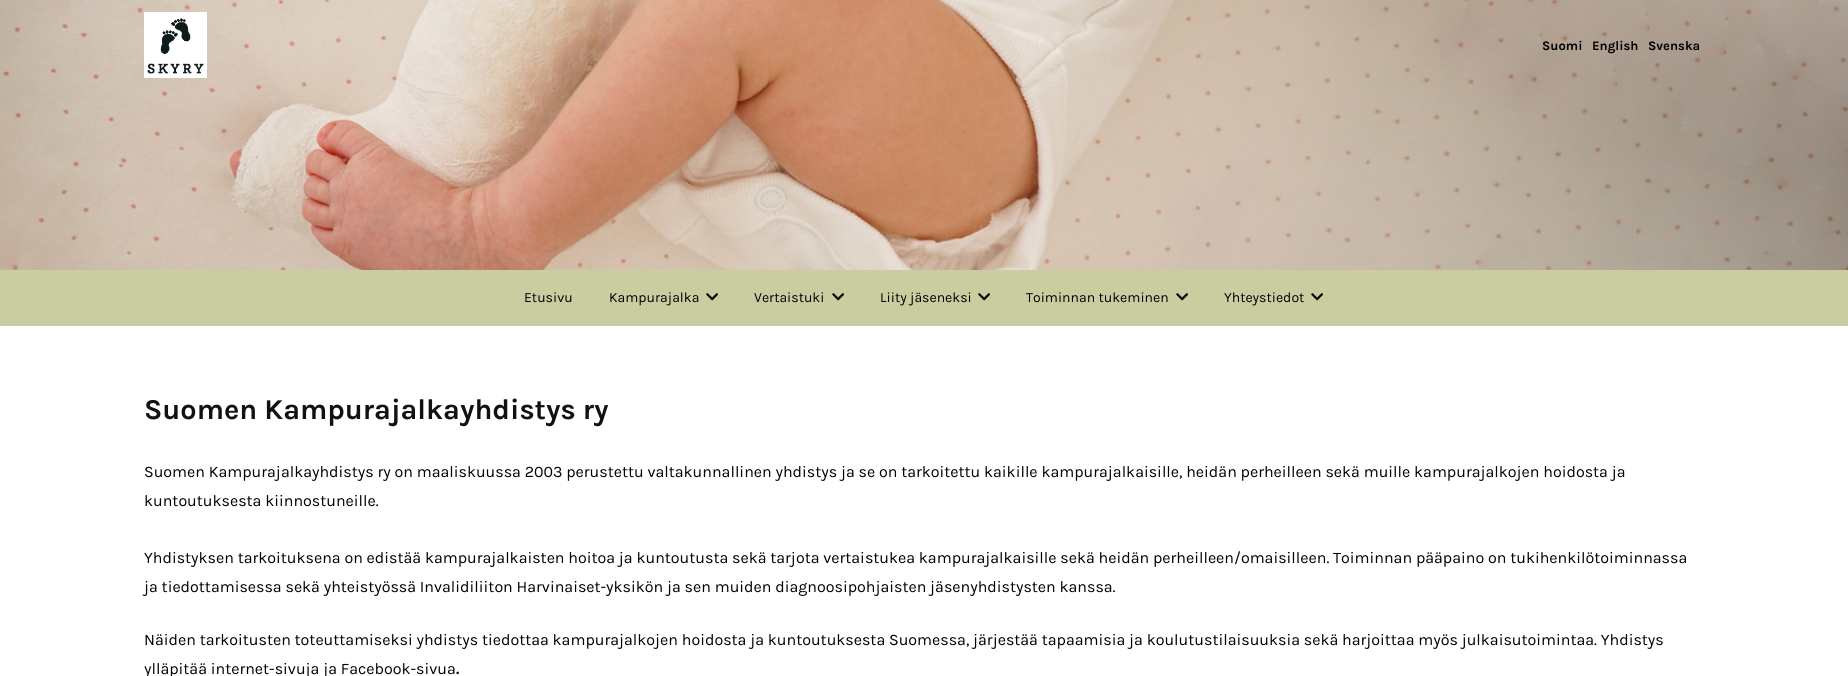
#include <cairo.h>
#include <math.h>
#include <stddef.h>


static void rgb(cairo_t *cr, int r, int g, int b)
{
	cairo_set_source_rgb(cr, r / 255.0, g / 255.0, b / 255.0);
}

static void face(cairo_t *cr, const char *family, double size, int italic, int bold)
{
	cairo_select_font_face(cr, family, italic ? CAIRO_FONT_SLANT_ITALIC : CAIRO_FONT_SLANT_NORMAL,
		bold ? CAIRO_FONT_WEIGHT_BOLD : CAIRO_FONT_WEIGHT_NORMAL);
	cairo_set_font_size(cr, size);
}

static void label(cairo_t *cr, double x, double y, const char *s)
{
	cairo_move_to(cr, x, y);
	cairo_show_text(cr, s);
}

static void rect(cairo_t *cr, double x, double y, double w, double h)
{
	cairo_rectangle(cr, x, y, w, h);
	cairo_fill(cr);
}

static void image(cairo_t *cr, const char *path, double x, double y, double w, double h)
{
	cairo_surface_t *image = cairo_image_surface_create_from_png(path);
	cairo_save(cr);
	cairo_set_source_surface(cr, image, x, y);
	cairo_rectangle(cr, x, y, w, h);
	cairo_fill(cr);
	cairo_restore(cr);
	cairo_surface_destroy(image);
}

static void draw(cairo_t *cr) {
	rgb(cr, 255, 255, 255);
	cairo_paint(cr);
	image(cr, "image1.png", 0, 0, 1848, 270);
	image(cr, "image0.png", 144, 12, 63, 66);
	face(cr, "Karla", 13, 0, 1);
	rgb(cr, 0, 0, 0);
	label(cr, 1542, 50, "Suomi");
	label(cr, 1592, 50, "English");
	label(cr, 1648, 50, "Svenska");
	rgb(cr, 202, 205, 160);
	rect(cr, 0, 270, 1848, 56);
	face(cr, "Karla", 14, 0, 0);
	rgb(cr, 0, 0, 0);
	label(cr, 524, 302, "Etusivu");
	label(cr, 609, 302, "Kampurajalka");
	image(cr, "image2.png", 706, 293, 12, 8);
	label(cr, 754, 302, "Vertaistuki");
	image(cr, "image2.png", 832, 293, 12, 8);
	label(cr, 880, 302, "Liity jäseneksi");
	image(cr, "image2.png", 978, 293, 12, 8);
	label(cr, 1026, 302, "Toiminnan tukeminen");
	image(cr, "image2.png", 1176, 293, 12, 8);
	label(cr, 1224, 302, "Yhteystiedot");
	image(cr, "image2.png", 1311, 293, 12, 8);
	face(cr, "Karla", 28.75, 0, 1);
	rgb(cr, 17, 17, 17);
	label(cr, 144, 419, "Suomen Kampurajalkayhdistys ry");
	face(cr, "Karla", 16, 0, 0);
	rgb(cr, 0, 0, 0);
	label(cr, 144, 477, "Suomen Kampurajalkayhdistys ry on maaliskuussa 2003 perustettu valtakunnallinen yhdistys ja se on tarkoitettu kaikille kampurajalkaisille, heidän perheilleen sekä muille kampurajalkojen hoidosta ja");
	label(cr, 144, 506, "kuntoutuksesta kiinnostuneille.");
	label(cr, 144, 563, "Yhdistyksen tarkoituksena on edistää kampurajalkaisten hoitoa ja kuntoutusta sekä tarjota vertaistukea kampurajalkaisille sekä heidän perheilleen/omaisilleen. Toiminnan pääpaino on tukihenkilötoiminnassa");
	label(cr, 144, 592, "ja tiedottamisessa sekä yhteistyössä Invalidiliiton Harvinaiset-yksikön ja sen muiden diagnoosipohjaisten jäsenyhdistysten kanssa.");
	label(cr, 144, 645, "Näiden tarkoitusten toteuttamiseksi yhdistys tiedottaa kampurajalkojen hoidosta ja kuntoutuksesta Suomessa, järjestää tapaamisia ja koulutustilaisuuksia sekä harjoittaa myös julkaisutoimintaa. Yhdistys");
	label(cr, 144, 674, "ylläpitää internet-sivuja ja Facebook-sivua");
	face(cr, "Karla", 16, 1, 1);
	label(cr, 456, 674, ".");
}

int main(void) {
	cairo_surface_t *surface = cairo_image_surface_create(CAIRO_FORMAT_RGB24, 1848, 676);
	cairo_t *cr = cairo_create(surface);
	cairo_font_options_t *options = cairo_font_options_create();
	cairo_font_options_set_hint_metrics(options, CAIRO_HINT_METRICS_OFF);
	cairo_font_options_set_hint_style(options, CAIRO_HINT_STYLE_NONE);
	cairo_set_font_options(cr, options);
	cairo_set_miter_limit(cr, 4);
	draw(cr);
	cairo_surface_write_to_png(surface, "render.png");
	cairo_font_options_destroy(options);
	cairo_destroy(cr);
	cairo_surface_destroy(surface);
	return 0;
}
